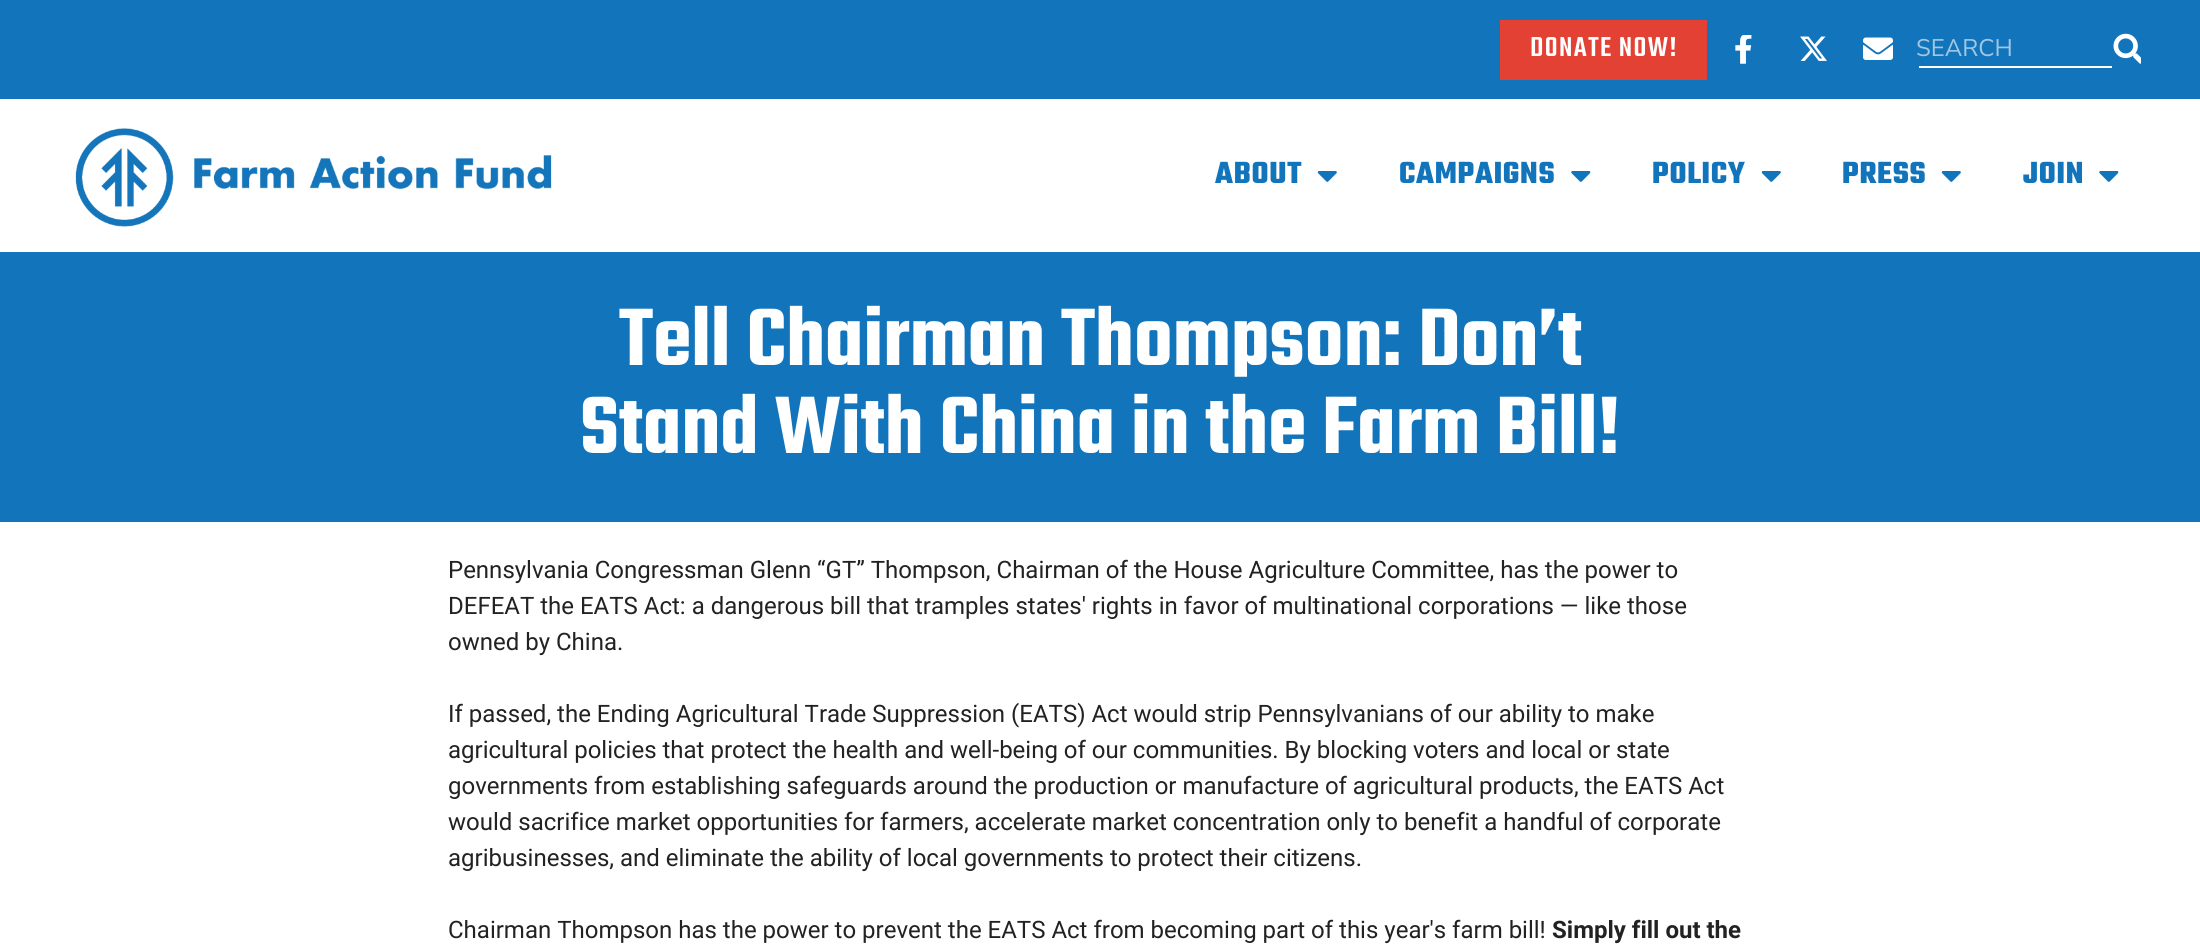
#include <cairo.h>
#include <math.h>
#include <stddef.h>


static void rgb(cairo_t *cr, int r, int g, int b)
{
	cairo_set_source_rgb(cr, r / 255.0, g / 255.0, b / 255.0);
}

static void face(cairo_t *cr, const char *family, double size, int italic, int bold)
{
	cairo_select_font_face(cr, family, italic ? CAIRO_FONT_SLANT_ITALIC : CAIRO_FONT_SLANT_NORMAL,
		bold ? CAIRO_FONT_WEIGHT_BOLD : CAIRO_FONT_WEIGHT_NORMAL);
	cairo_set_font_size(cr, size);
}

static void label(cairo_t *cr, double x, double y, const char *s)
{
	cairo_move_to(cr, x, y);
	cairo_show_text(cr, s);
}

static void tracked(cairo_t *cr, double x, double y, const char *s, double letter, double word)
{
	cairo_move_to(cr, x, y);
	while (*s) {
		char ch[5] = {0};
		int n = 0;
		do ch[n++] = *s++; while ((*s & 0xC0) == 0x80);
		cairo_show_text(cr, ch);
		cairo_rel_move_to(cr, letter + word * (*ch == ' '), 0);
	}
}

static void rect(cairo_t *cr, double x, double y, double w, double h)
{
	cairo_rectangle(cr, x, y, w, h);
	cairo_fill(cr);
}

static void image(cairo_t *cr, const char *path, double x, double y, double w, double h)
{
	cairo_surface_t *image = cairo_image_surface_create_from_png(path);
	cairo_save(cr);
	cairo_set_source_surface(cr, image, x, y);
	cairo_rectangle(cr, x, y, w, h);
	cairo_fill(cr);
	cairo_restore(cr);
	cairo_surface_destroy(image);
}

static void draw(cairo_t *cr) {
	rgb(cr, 255, 255, 255);
	cairo_paint(cr);
	rgb(cr, 18, 116, 187);
	rect(cr, 0, 0, 2200, 99);
	rgb(cr, 227, 65, 52);
	rect(cr, 1500, 20, 207, 60);
	face(cr, "Teko Medium", 30, 0, 0);
	rgb(cr, 255, 255, 255);
	tracked(cr, 1530, 56, "DONATE NOW!", 1.4, 0);
	image(cr, "image0.png", 1735, 35, 17, 29);
	image(cr, "image1.png", 1800, 36, 27, 25);
	image(cr, "image2.png", 1863, 37, 30, 23);
	rect(cr, 1919, 66, 193, 2);
	face(cr, "Nunito Sans", 24, 0, 0);
	rgb(cr, 160, 199, 228);
	label(cr, 1916, 56, "SEARCH");
	image(cr, "image3.png", 2113, 33, 28, 31);
	image(cr, "image4.png", 75, 128, 477, 99);
	face(cr, "Teko", 33, 0, 1);
	rgb(cr, 18, 116, 187);
	tracked(cr, 1215, 183, "ABOUT", 0.75, 0);
	image(cr, "image5.png", 1317, 171, 20, 11);
	tracked(cr, 1399, 183, "CAMPAIGNS", 0.75, 0);
	image(cr, "image6.png", 1571, 171, 20, 11);
	tracked(cr, 1652, 183, "POLICY", 0.75, 0);
	image(cr, "image5.png", 1761, 171, 20, 11);
	tracked(cr, 1842, 183, "PRESS", 0.75, 0);
	image(cr, "image5.png", 1941, 171, 20, 11);
	tracked(cr, 2023, 183, "JOIN", 0.75, 0);
	image(cr, "image6.png", 2099, 171, 20, 11);
	rect(cr, 0, 252, 2200, 270);
	face(cr, "Teko SemiBold", 88.5, 0, 0);
	rgb(cr, 255, 255, 255);
	label(cr, 619, 365, "Tell Chairman Thompson: Don’t");
	label(cr, 580, 453, "Stand With China in the Farm Bill!");
	face(cr, "Roboto", 24, 0, 0);
	rgb(cr, 34, 34, 34);
	label(cr, 448, 578, "Pennsylvania Congressman Glenn “GT” Thompson, Chairman of the House Agriculture Committee, has the power to");
	label(cr, 448, 614, "DEFEAT the EATS Act: a dangerous bill that tramples states' rights in favor of multinational corporations — like those");
	label(cr, 448, 650, "owned by China.");
	label(cr, 448, 722, "If passed, the Ending Agricultural Trade Suppression (EATS) Act would strip Pennsylvanians of our ability to make");
	label(cr, 448, 758, "agricultural policies that protect the health and well-being of our communities. By blocking voters and local or state");
	label(cr, 448, 794, "governments from establishing safeguards around the production or manufacture of agricultural products, the EATS Act");
	label(cr, 448, 830, "would sacrifice market opportunities for farmers, accelerate market concentration only to benefit a handful of corporate");
	label(cr, 448, 866, "agribusinesses, and eliminate the ability of local governments to protect their citizens.");
	label(cr, 448, 938, "Chairman Thompson has the power to prevent the EATS Act from becoming part of this year's farm bill!");
	face(cr, "Roboto", 24, 0, 1);
	label(cr, 1552, 938, "Simply fill out the");
}

int main(void) {
	cairo_surface_t *surface = cairo_image_surface_create(CAIRO_FORMAT_RGB24, 2200, 950);
	cairo_t *cr = cairo_create(surface);
	cairo_font_options_t *options = cairo_font_options_create();
	cairo_font_options_set_hint_metrics(options, CAIRO_HINT_METRICS_OFF);
	cairo_font_options_set_hint_style(options, CAIRO_HINT_STYLE_NONE);
	cairo_set_font_options(cr, options);
	cairo_set_miter_limit(cr, 4);
	draw(cr);
	cairo_surface_write_to_png(surface, "render.png");
	cairo_font_options_destroy(options);
	cairo_destroy(cr);
	cairo_surface_destroy(surface);
	return 0;
}
